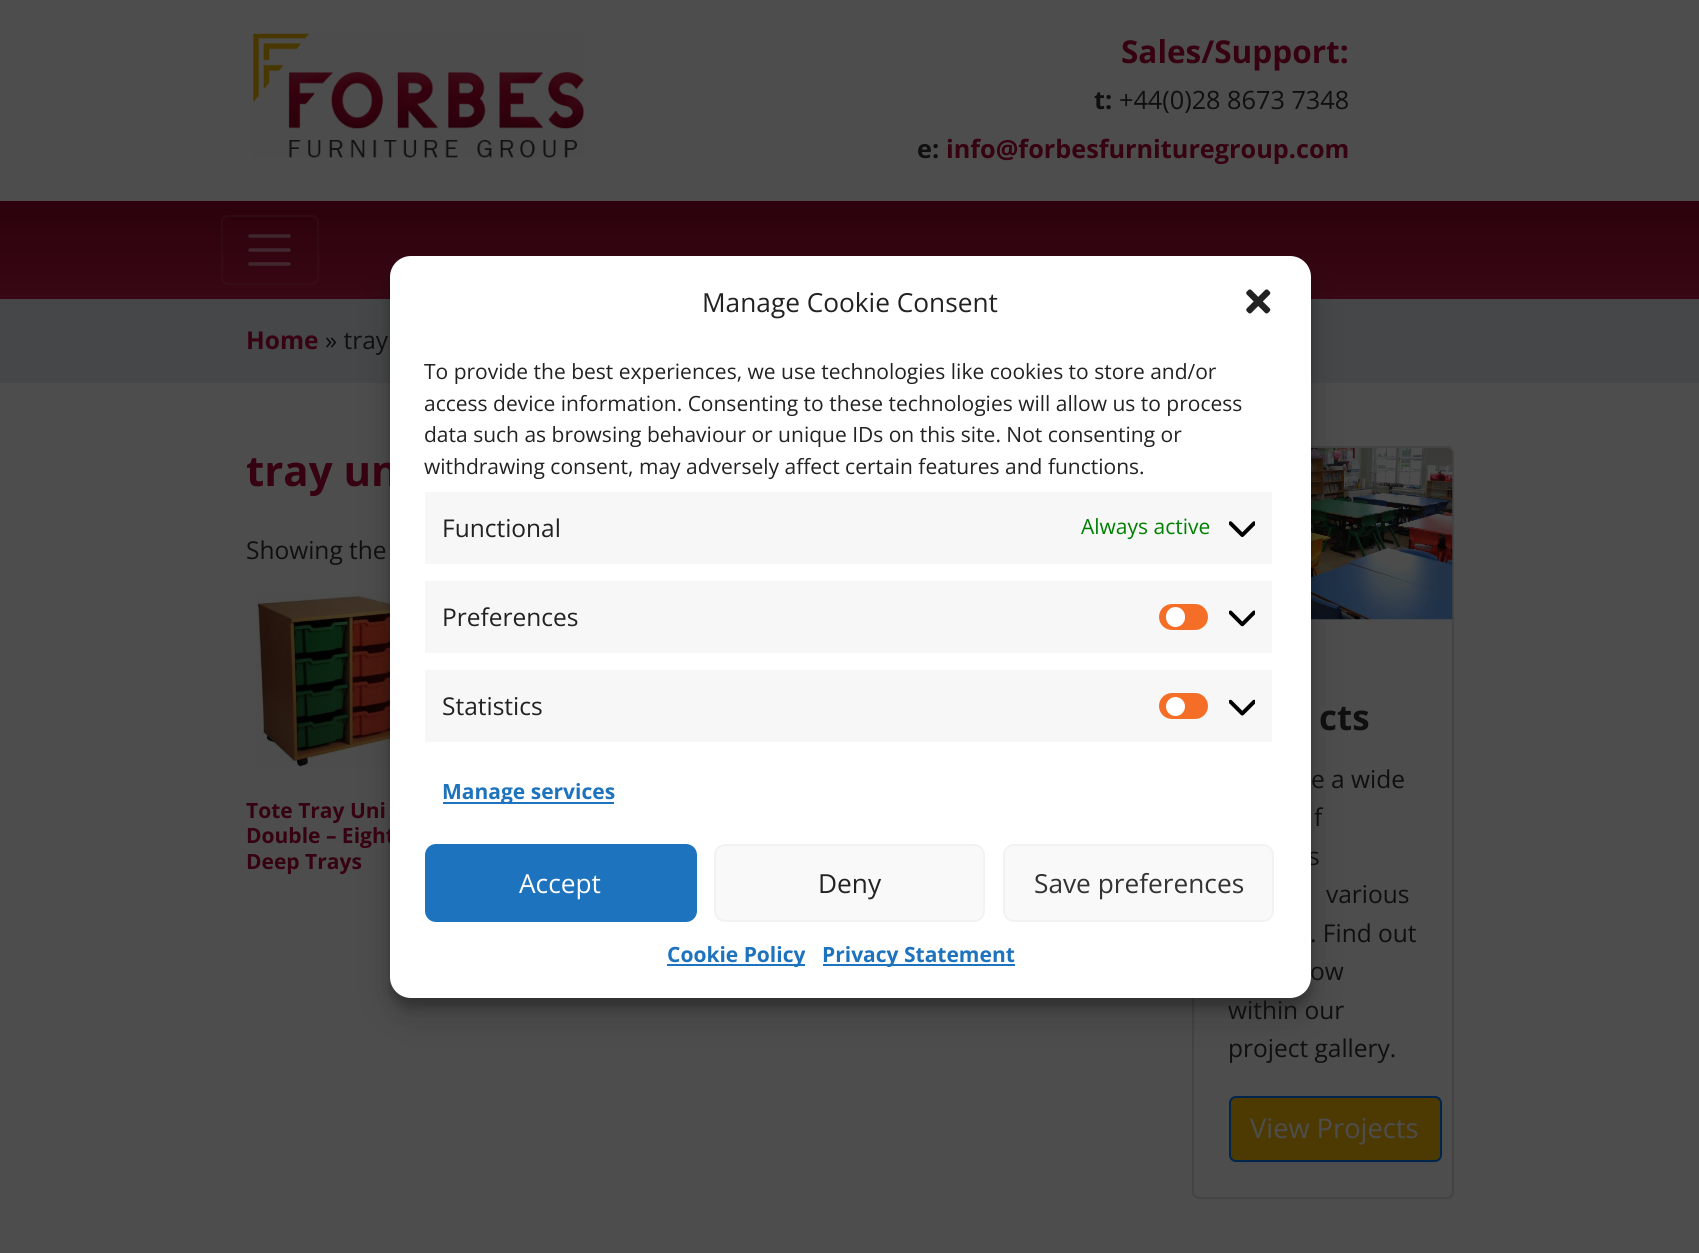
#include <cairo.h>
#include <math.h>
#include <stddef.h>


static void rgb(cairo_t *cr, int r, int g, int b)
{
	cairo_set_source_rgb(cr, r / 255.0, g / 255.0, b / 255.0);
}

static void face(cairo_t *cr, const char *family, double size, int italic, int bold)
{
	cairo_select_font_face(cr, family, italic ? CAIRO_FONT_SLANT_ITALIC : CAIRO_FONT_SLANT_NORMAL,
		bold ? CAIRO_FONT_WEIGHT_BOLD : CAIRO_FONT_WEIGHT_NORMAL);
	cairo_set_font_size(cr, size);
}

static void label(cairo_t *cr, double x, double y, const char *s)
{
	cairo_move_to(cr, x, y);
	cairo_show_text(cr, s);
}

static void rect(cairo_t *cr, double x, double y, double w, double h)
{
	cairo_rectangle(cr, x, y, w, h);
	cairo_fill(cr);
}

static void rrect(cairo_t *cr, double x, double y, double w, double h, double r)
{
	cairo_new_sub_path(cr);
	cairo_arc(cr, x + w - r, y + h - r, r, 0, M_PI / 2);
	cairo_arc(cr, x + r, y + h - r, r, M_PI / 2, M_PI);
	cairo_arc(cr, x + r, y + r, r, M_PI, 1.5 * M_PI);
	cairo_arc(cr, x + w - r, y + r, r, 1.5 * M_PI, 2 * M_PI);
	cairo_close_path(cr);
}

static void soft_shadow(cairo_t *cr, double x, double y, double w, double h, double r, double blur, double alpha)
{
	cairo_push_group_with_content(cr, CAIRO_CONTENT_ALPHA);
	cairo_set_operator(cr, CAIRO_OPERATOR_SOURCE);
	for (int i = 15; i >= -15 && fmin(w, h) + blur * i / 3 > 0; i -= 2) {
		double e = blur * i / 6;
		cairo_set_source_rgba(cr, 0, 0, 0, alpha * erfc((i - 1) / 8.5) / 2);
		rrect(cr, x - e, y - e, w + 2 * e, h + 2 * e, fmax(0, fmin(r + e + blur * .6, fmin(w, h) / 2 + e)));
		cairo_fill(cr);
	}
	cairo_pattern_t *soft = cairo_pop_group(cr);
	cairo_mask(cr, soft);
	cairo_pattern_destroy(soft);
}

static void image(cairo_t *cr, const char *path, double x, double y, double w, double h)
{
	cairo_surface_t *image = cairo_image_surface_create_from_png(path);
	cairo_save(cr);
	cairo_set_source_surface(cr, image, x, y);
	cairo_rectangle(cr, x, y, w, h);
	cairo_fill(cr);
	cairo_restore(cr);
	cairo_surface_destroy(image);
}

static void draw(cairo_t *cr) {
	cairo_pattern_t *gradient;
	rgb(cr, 77, 77, 77);
	cairo_paint(cr);
	image(cr, "image0.png", 253, 33, 331, 125);
	face(cr, "Open Sans", 31.5, 0, 1);
	rgb(cr, 54, 2, 17);
	label(cr, 1121, 63, "Sales/Support:");
	face(cr, "Open Sans", 25.25, 0, 1);
	rgb(cr, 15, 15, 15);
	label(cr, 1094, 109, "t:");
	face(cr, "Open Sans", 25.25, 0, 0);
	label(cr, 1119, 109, "+44(0)28 8673 7348");
	face(cr, "Open Sans", 25.25, 0, 1);
	label(cr, 917, 158, "e:");
	rgb(cr, 54, 2, 17);
	label(cr, 946, 158, "info@forbesfurnituregroup.com");
	gradient = cairo_pattern_create_linear(850, 201, 850, 299);
	cairo_pattern_add_color_stop_rgba(gradient, 0, 0.173, 0.004, 0.047, 1);
	cairo_pattern_add_color_stop_rgba(gradient, 1, 0.22, 0.031, 0.078, 1);
	cairo_set_source(cr, gradient);
	cairo_pattern_destroy(gradient);
	rect(cr, 0, 201, 1699, 98);
	rrect(cr, 222, 216, 96, 68, 6);
	cairo_set_source_rgba(cr, 0.302, 0.302, 0.302, 0.1);
	cairo_stroke(cr);
	cairo_new_path(cr);
	cairo_move_to(cr, 250, 236);
	cairo_line_to(cr, 289, 236);
	cairo_move_to(cr, 250, 250);
	cairo_line_to(cr, 289, 250);
	cairo_move_to(cr, 250, 264);
	cairo_line_to(cr, 289, 264);
	cairo_set_source_rgba(cr, 0.302, 0.302, 0.302, 0.5);
	cairo_set_line_width(cr, 3.5);
	cairo_set_line_cap(cr, CAIRO_LINE_CAP_ROUND);
	cairo_stroke(cr);
	rgb(cr, 70, 71, 72);
	rect(cr, 0, 299, 1699, 84);
	face(cr, "Open Sans", 24.5, 0, 1);
	rgb(cr, 54, 2, 17);
	label(cr, 246, 349, "Home");
	face(cr, "Open Sans", 24.5, 0, 0);
	rgb(cr, 15, 15, 15);
	label(cr, 325, 349, "» tray");
	image(cr, "image5.png", 256, 593, 134, 174);
	rrect(cr, 1193, 447, 260, 751, 6);
	rgb(cr, 67, 67, 67);
	cairo_set_line_width(cr, 2);
	cairo_set_line_cap(cr, CAIRO_LINE_CAP_BUTT);
	cairo_stroke(cr);
	image(cr, "image6.png", 1311, 448, 142, 172);
	rgb(cr, 0, 0, 0);
	soft_shadow(cr, 390, 266, 921, 742, 21, 5, 0.23);
	soft_shadow(cr, 390, 273, 921, 742, 21, 17.5, 0.19);
	face(cr, "Open Sans", 42, 0, 1);
	rgb(cr, 54, 2, 17);
	label(cr, 246, 486, "tray un");
	face(cr, "Open Sans", 21, 0, 1);
	label(cr, 246, 843, "Double – Eight");
	face(cr, "Open Sans", 24.5, 0, 0);
	rgb(cr, 15, 15, 15);
	label(cr, 1308, 865, "s");
	rgb(cr, 255, 255, 255);
	rrect(cr, 390, 256, 921, 742, 21);
	cairo_fill(cr);
	face(cr, "Open Sans", 26.25, 0, 0);
	rgb(cr, 34, 34, 34);
	label(cr, 702, 312, "Manage Cookie Consent");
	image(cr, "image1.png", 1246, 289, 25, 25);
	face(cr, "Open Sans", 21, 0, 0);
	label(cr, 424, 379, "To provide the best experiences, we use technologies like cookies to store and/or");
	label(cr, 424, 411, "access device information. Consenting to these technologies will allow us to process");
	label(cr, 424, 442, "data such as browsing behaviour or unique IDs on this site. Not consenting or");
	label(cr, 424, 474, "withdrawing consent, may adversely affect certain features and functions.");
	rgb(cr, 247, 247, 247);
	rect(cr, 425, 492, 847, 72);
	face(cr, "Open Sans", 24.5, 0, 0);
	rgb(cr, 34, 34, 34);
	label(cr, 442, 537, "Functional");
	face(cr, "Open Sans", 21, 0, 0);
	rgb(cr, 0, 128, 0);
	label(cr, 1081, 534, "Always active");
	image(cr, "image2.png", 1229, 521, 26, 16);
	rgb(cr, 247, 247, 247);
	rect(cr, 425, 581, 847, 72);
	face(cr, "Open Sans", 24.5, 0, 0);
	rgb(cr, 34, 34, 34);
	label(cr, 442, 626, "Preferences");
	rgb(cr, 245, 110, 40);
	rrect(cr, 1159, 604, 49, 26, 13);
	cairo_fill(cr);
	rgb(cr, 255, 255, 255);
	rrect(cr, 1166, 607, 19, 20, 9.5);
	cairo_fill(cr);
	image(cr, "image3.png", 1229, 610, 26, 17);
	rgb(cr, 247, 247, 247);
	rect(cr, 425, 670, 847, 72);
	rgb(cr, 34, 34, 34);
	label(cr, 442, 715, "Statistics");
	rgb(cr, 245, 110, 40);
	rrect(cr, 1159, 693, 49, 26, 13);
	cairo_fill(cr);
	rgb(cr, 255, 255, 255);
	cairo_arc(cr, 1175.5, 706.5, 9.5, 0, 2 * M_PI);
	cairo_fill(cr);
	image(cr, "image4.png", 1229, 699, 26, 17);
	rgb(cr, 30, 115, 190);
	rect(cr, 443, 802, 171, 2);
	face(cr, "Open Sans", 21, 0, 1);
	label(cr, 442, 799, "Manage services");
	rrect(cr, 426, 845, 270, 76, 10);
	cairo_fill_preserve(cr);
	cairo_stroke(cr);
	face(cr, "Open Sans", 26.25, 0, 0);
	rgb(cr, 255, 255, 255);
	label(cr, 519, 893, "Accept");
	rgb(cr, 249, 249, 249);
	rrect(cr, 715, 845, 269, 76, 10);
	cairo_fill_preserve(cr);
	rgb(cr, 242, 242, 242);
	cairo_stroke(cr);
	rgb(cr, 34, 34, 34);
	label(cr, 818, 893, "Deny");
	rgb(cr, 249, 249, 249);
	rrect(cr, 1004, 845, 269, 76, 10);
	cairo_fill_preserve(cr);
	rgb(cr, 242, 242, 242);
	cairo_stroke(cr);
	rgb(cr, 51, 51, 51);
	label(cr, 1034, 893, "Save preferences");
	rgb(cr, 30, 115, 190);
	rect(cr, 667, 964, 138, 2);
	face(cr, "Open Sans", 21, 0, 1);
	label(cr, 667, 962, "Cookie Policy");
	rect(cr, 823, 964, 192, 2);
	label(cr, 822, 962, "Privacy Statement");
	face(cr, "Open Sans", 24.5, 0, 0);
	rgb(cr, 15, 15, 15);
	label(cr, 246, 559, "Showing the");
	face(cr, "Open Sans", 21, 0, 1);
	rgb(cr, 54, 2, 17);
	label(cr, 246, 818, "Tote Tray Uni");
	label(cr, 246, 869, "Deep Trays");
	face(cr, "Open Sans", 35, 0, 1);
	rgb(cr, 15, 15, 15);
	label(cr, 1319, 730, "cts");
	face(cr, "Open Sans", 24.5, 0, 0);
	label(cr, 1311, 788, "e a wide");
	label(cr, 1314, 826, "f");
	label(cr, 1326, 903, "various");
	label(cr, 1310, 942, ". Find out");
	label(cr, 1310, 980, "ow");
	label(cr, 1228, 1019, "within our");
	label(cr, 1228, 1057, "project gallery.");
	rgb(cr, 77, 58, 2);
	rrect(cr, 1230, 1097, 211, 64, 6);
	cairo_fill_preserve(cr);
	rgb(cr, 0, 37, 77);
	cairo_stroke(cr);
	face(cr, "Open Sans", 27.25, 0, 0);
	rgb(cr, 77, 77, 77);
	label(cr, 1250, 1138, "View Projects");
}

int main(void) {
	cairo_surface_t *surface = cairo_image_surface_create(CAIRO_FORMAT_RGB24, 1699, 1253);
	cairo_t *cr = cairo_create(surface);
	cairo_font_options_t *options = cairo_font_options_create();
	cairo_font_options_set_hint_metrics(options, CAIRO_HINT_METRICS_OFF);
	cairo_font_options_set_hint_style(options, CAIRO_HINT_STYLE_NONE);
	cairo_set_font_options(cr, options);
	cairo_set_miter_limit(cr, 4);
	draw(cr);
	cairo_surface_write_to_png(surface, "render.png");
	cairo_font_options_destroy(options);
	cairo_destroy(cr);
	cairo_surface_destroy(surface);
	return 0;
}
